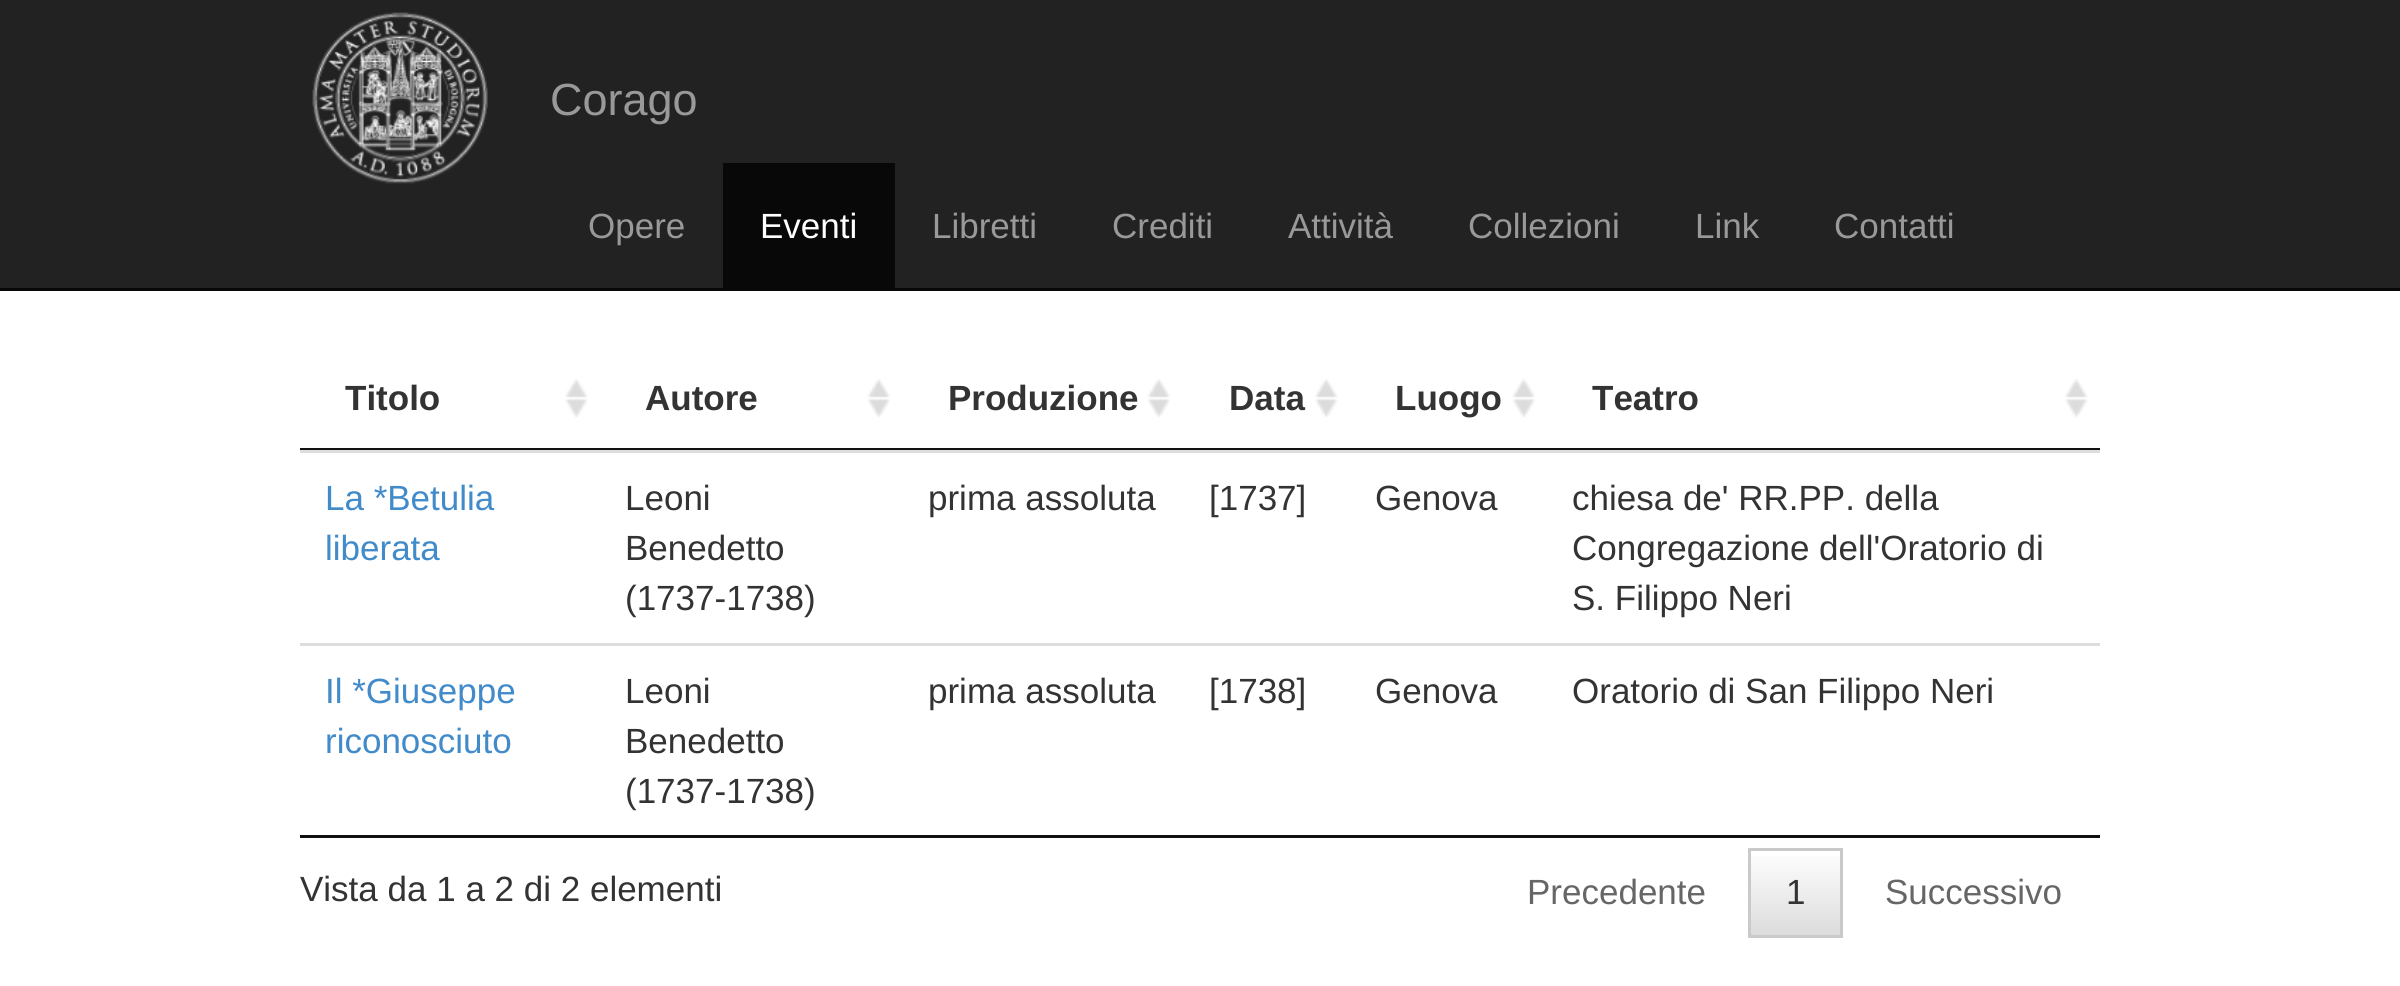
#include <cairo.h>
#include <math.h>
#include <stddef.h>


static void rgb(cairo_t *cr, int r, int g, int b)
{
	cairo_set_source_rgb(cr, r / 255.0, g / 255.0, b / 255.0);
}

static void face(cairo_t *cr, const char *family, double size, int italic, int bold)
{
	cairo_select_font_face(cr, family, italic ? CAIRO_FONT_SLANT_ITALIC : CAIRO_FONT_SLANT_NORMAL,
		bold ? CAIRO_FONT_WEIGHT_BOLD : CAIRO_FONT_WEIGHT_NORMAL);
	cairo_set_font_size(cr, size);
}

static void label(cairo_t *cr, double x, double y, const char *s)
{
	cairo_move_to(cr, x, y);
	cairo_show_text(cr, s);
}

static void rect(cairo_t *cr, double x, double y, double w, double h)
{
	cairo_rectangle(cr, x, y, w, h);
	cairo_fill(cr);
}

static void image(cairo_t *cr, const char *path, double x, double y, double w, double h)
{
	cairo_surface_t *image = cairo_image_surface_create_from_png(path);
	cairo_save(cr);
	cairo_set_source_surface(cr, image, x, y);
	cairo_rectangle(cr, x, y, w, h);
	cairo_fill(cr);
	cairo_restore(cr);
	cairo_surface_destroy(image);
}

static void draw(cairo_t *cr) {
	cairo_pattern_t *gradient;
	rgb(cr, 255, 255, 255);
	cairo_paint(cr);
	rgb(cr, 34, 34, 34);
	rect(cr, 0, 0, 2400, 288);
	rgb(cr, 8, 8, 8);
	rect(cr, 0, 288, 2400, 3);
	image(cr, "image0.png", 312, 12, 176, 172);
	face(cr, "Liberation Sans", 45, 0, 0);
	rgb(cr, 153, 153, 153);
	label(cr, 550, 115, "Corago");
	face(cr, "Liberation Sans", 35, 0, 0);
	label(cr, 588, 238, "Opere");
	rgb(cr, 8, 8, 8);
	rect(cr, 723, 163, 172, 125);
	rgb(cr, 255, 255, 255);
	label(cr, 760, 238, "Eventi");
	rgb(cr, 153, 153, 153);
	label(cr, 932, 238, "Libretti");
	label(cr, 1112, 238, "Crediti");
	label(cr, 1288, 238, "Attività");
	label(cr, 1468, 238, "Collezioni");
	label(cr, 1695, 238, "Link");
	label(cr, 1834, 238, "Contatti");
	rgb(cr, 17, 17, 17);
	rect(cr, 300, 835, 1800, 3);
	image(cr, "image1.png", 565, 379, 23, 39);
	rect(cr, 300, 448, 1800, 2);
	face(cr, "Liberation Sans", 35, 0, 1);
	rgb(cr, 51, 51, 51);
	label(cr, 345, 410, "Titolo");
	image(cr, "image2.png", 867, 379, 23, 39);
	label(cr, 645, 410, "Autore");
	image(cr, "image3.png", 1147, 379, 23, 39);
	label(cr, 948, 410, "Produzione");
	image(cr, "image4.png", 1315, 379, 23, 39);
	label(cr, 1229, 410, "Data");
	image(cr, "image2.png", 1512, 379, 23, 39);
	label(cr, 1395, 410, "Luogo");
	image(cr, "image4.png", 2065, 379, 23, 39);
	label(cr, 1592, 410, "Teatro");
	rgb(cr, 221, 221, 221);
	rect(cr, 300, 450, 1800, 3);
	face(cr, "Liberation Sans", 35, 0, 0);
	rgb(cr, 66, 139, 202);
	label(cr, 325, 510, "La *Betulia");
	label(cr, 325, 560, "liberata");
	rgb(cr, 51, 51, 51);
	label(cr, 625, 510, "Leoni");
	label(cr, 625, 560, "Benedetto");
	label(cr, 625, 610, "(1737-1738)");
	label(cr, 928, 510, "prima assoluta");
	label(cr, 1209, 510, "[1737]");
	label(cr, 1375, 510, "Genova");
	label(cr, 1572, 510, "chiesa de' RR.PP. della");
	label(cr, 1572, 560, "Congregazione dell'Oratorio di");
	label(cr, 1572, 610, "S. Filippo Neri");
	rgb(cr, 221, 221, 221);
	rect(cr, 300, 643, 1800, 3);
	rgb(cr, 66, 139, 202);
	label(cr, 325, 703, "Il *Giuseppe");
	label(cr, 325, 753, "riconosciuto");
	rgb(cr, 51, 51, 51);
	label(cr, 625, 703, "Leoni");
	label(cr, 625, 753, "Benedetto");
	label(cr, 625, 803, "(1737-1738)");
	label(cr, 928, 703, "prima assoluta");
	label(cr, 1209, 703, "[1738]");
	label(cr, 1375, 703, "Genova");
	label(cr, 1572, 703, "Oratorio di San Filippo Neri");
	label(cr, 300, 901, "Vista da 1 a 2 di 2 elementi");
	rgb(cr, 102, 102, 102);
	label(cr, 1527, 904, "Precedente");
	gradient = cairo_pattern_create_linear(1795, 850, 1795, 935);
	cairo_pattern_add_color_stop_rgba(gradient, 0, 1, 1, 1, 1);
	cairo_pattern_add_color_stop_rgba(gradient, 1, 0.863, 0.863, 0.863, 1);
	cairo_set_source(cr, gradient);
	cairo_pattern_destroy(gradient);
	rect(cr, 1751, 856, 89, 79);
	cairo_rectangle(cr, 1749.5, 849.5, 92, 87);
	rgb(cr, 202, 202, 202);
	cairo_set_line_width(cr, 3);
	cairo_stroke(cr);
	rgb(cr, 51, 51, 51);
	label(cr, 1786, 904, "1");
	rgb(cr, 102, 102, 102);
	label(cr, 1885, 904, "Successivo");
}

int main(void) {
	cairo_surface_t *surface = cairo_image_surface_create(CAIRO_FORMAT_RGB24, 2400, 986);
	cairo_t *cr = cairo_create(surface);
	cairo_font_options_t *options = cairo_font_options_create();
	cairo_font_options_set_hint_metrics(options, CAIRO_HINT_METRICS_OFF);
	cairo_font_options_set_hint_style(options, CAIRO_HINT_STYLE_NONE);
	cairo_set_font_options(cr, options);
	cairo_set_miter_limit(cr, 4);
	draw(cr);
	cairo_surface_write_to_png(surface, "render.png");
	cairo_font_options_destroy(options);
	cairo_destroy(cr);
	cairo_surface_destroy(surface);
	return 0;
}
